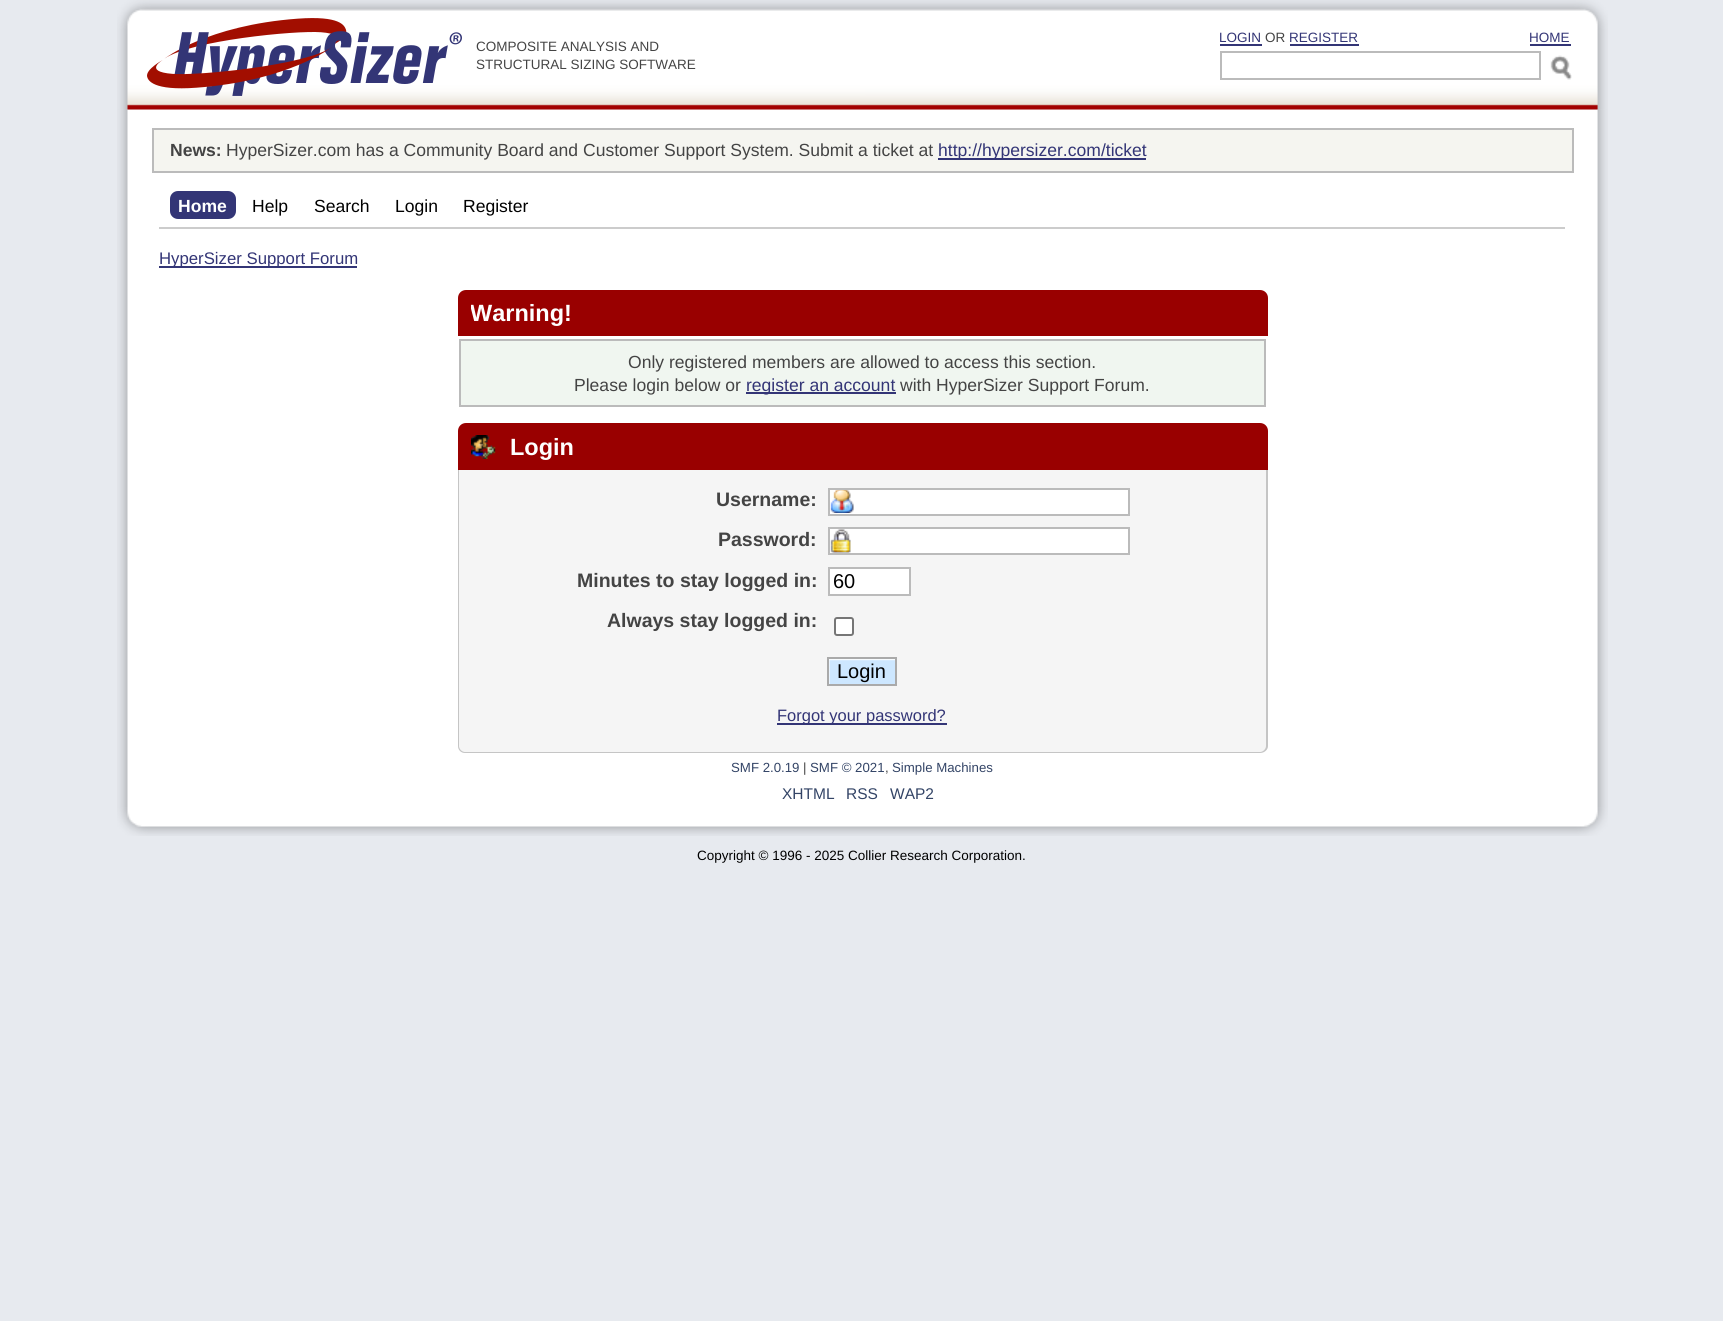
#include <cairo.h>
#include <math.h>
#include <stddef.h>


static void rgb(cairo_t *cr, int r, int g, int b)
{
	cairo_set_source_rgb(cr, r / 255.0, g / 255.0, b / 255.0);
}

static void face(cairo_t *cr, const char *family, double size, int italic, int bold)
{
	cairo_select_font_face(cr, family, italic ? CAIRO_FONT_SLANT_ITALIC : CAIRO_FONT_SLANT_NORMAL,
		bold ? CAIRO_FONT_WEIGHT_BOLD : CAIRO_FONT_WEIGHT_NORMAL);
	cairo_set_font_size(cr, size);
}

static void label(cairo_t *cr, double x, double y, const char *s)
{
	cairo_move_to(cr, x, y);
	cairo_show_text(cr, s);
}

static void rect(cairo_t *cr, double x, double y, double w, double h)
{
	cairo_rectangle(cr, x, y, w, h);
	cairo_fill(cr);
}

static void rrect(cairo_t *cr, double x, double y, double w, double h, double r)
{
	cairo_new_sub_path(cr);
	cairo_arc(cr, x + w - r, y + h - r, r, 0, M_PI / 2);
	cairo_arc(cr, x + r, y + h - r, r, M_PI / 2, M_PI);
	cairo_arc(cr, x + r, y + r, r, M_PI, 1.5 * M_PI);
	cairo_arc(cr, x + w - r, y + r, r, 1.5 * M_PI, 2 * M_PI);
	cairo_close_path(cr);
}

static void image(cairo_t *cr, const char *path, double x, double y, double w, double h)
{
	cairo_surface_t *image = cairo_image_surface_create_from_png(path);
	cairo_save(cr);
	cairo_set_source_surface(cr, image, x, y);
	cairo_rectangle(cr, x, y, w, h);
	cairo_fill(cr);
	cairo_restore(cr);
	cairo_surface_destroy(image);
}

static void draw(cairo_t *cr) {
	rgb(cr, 231, 234, 239);
	cairo_paint(cr);
	image(cr, "image3.png", 117, 109, 1491, 698);
	image(cr, "image0.png", 117, 0, 1491, 110);
	image(cr, "image1.png", 147, 18, 315, 78);
	face(cr, "Liberation Sans", 13.5, 0, 0);
	rgb(cr, 51, 53, 118);
	label(cr, 1219, 42, "LOGIN");
	rect(cr, 1220, 44, 42, 2);
	rgb(cr, 68, 68, 68);
	label(cr, 1265, 42, "OR");
	rgb(cr, 51, 53, 118);
	label(cr, 1289, 42, "REGISTER");
	rect(cr, 1290, 44, 69, 2);
	label(cr, 1529, 42, "HOME");
	rect(cr, 1530, 44, 41, 2);
	cairo_rectangle(cr, 1221, 52, 319, 27);
	rgb(cr, 187, 187, 187);
	cairo_stroke(cr);
	image(cr, "image2.png", 1550, 55, 22, 25);
	rgb(cr, 68, 68, 68);
	label(cr, 476, 51, "COMPOSITE ANALYSIS AND");
	label(cr, 476, 69, "STRUCTURAL SIZING SOFTWARE");
	rgb(cr, 245, 245, 240);
	cairo_rectangle(cr, 153, 129, 1420, 43);
	cairo_fill_preserve(cr);
	rgb(cr, 187, 187, 187);
	cairo_stroke(cr);
	face(cr, "Liberation Sans", 17.55, 0, 1);
	rgb(cr, 68, 68, 68);
	label(cr, 170, 156, "News:");
	face(cr, "Liberation Sans", 17.55, 0, 0);
	label(cr, 226, 156, "HyperSizer.com has a Community Board and Customer Support System. Submit a ticket at");
	rgb(cr, 51, 53, 118);
	rect(cr, 938, 158, 208, 2);
	label(cr, 938, 156, "http://hypersizer.com/ticket");
	rrect(cr, 170, 191, 66, 28, 8);
	cairo_fill(cr);
	face(cr, "Liberation Sans", 17.55, 0, 1);
	rgb(cr, 255, 255, 255);
	label(cr, 178, 212, "Home");
	face(cr, "Liberation Sans", 17.55, 0, 0);
	rgb(cr, 0, 0, 0);
	label(cr, 252, 212, "Help");
	label(cr, 314, 212, "Search");
	label(cr, 395, 212, "Login");
	label(cr, 463, 212, "Register");
	rgb(cr, 204, 204, 204);
	rect(cr, 159, 227, 1406, 2);
	rgb(cr, 51, 53, 118);
	rect(cr, 159, 266, 198, 2);
	face(cr, "Liberation Sans", 16.75, 0, 0);
	label(cr, 159, 264, "HyperSizer Support Forum");
	rgb(cr, 153, 0, 0);
	cairo_new_path(cr);
	cairo_move_to(cr, 466, 290);
	cairo_line_to(cr, 1260, 290);
	cairo_curve_to(cr, 1264.5, 290, 1268, 293.5, 1268, 298);
	cairo_line_to(cr, 1268, 336);
	cairo_line_to(cr, 458, 336);
	cairo_line_to(cr, 458, 298);
	cairo_curve_to(cr, 458, 293.5, 461.5, 290, 466, 290);
	cairo_close_path(cr);
	cairo_fill(cr);
	cairo_save(cr);
	cairo_rectangle(cr, 471, 290, 783, 51);
	cairo_clip(cr);
	face(cr, "Liberation Sans", 23.5, 0, 1);
	rgb(cr, 255, 255, 255);
	label(cr, 470, 321, "Warning!");
	cairo_restore(cr);
	rgb(cr, 240, 246, 240);
	cairo_rectangle(cr, 460, 340, 805, 66);
	cairo_fill_preserve(cr);
	rgb(cr, 187, 187, 187);
	cairo_stroke(cr);
	face(cr, "Liberation Sans", 17.55, 0, 0);
	rgb(cr, 68, 68, 68);
	label(cr, 628, 368, "Only registered members are allowed to access this section.");
	label(cr, 574, 391, "Please login below or");
	rgb(cr, 51, 53, 118);
	rect(cr, 746, 392, 150, 2);
	label(cr, 746, 391, "register an account");
	rgb(cr, 68, 68, 68);
	label(cr, 900, 391, "with HyperSizer Support Forum.");
	rgb(cr, 153, 0, 0);
	cairo_new_path(cr);
	cairo_move_to(cr, 466, 423);
	cairo_line_to(cr, 1260, 423);
	cairo_curve_to(cr, 1264.5, 423, 1268, 426.5, 1268, 431);
	cairo_line_to(cr, 1268, 470);
	cairo_line_to(cr, 458, 470);
	cairo_line_to(cr, 458, 431);
	cairo_curve_to(cr, 458, 426.5, 461.5, 423, 466, 423);
	cairo_close_path(cr);
	cairo_fill(cr);
	image(cr, "image4.png", 471, 435, 25, 24);
	face(cr, "Liberation Sans", 23.5, 0, 1);
	rgb(cr, 255, 255, 255);
	label(cr, 510, 455, "Login");
	rgb(cr, 245, 245, 245);
	cairo_new_path(cr);
	cairo_move_to(cr, 458, 470);
	cairo_line_to(cr, 1268, 470);
	cairo_line_to(cr, 1268, 745);
	cairo_curve_to(cr, 1268, 749.5, 1264.5, 753, 1260, 753);
	cairo_line_to(cr, 466, 753);
	cairo_curve_to(cr, 461.5, 753, 458, 749.5, 458, 745);
	cairo_close_path(cr);
	cairo_fill(cr);
	rgb(cr, 197, 197, 197);
	cairo_set_fill_rule(cr, CAIRO_FILL_RULE_EVEN_ODD);
	cairo_new_path(cr);
	cairo_move_to(cr, 458, 470);
	cairo_line_to(cr, 1268, 470);
	cairo_line_to(cr, 1268, 746);
	cairo_curve_to(cr, 1268, 750, 1264, 753, 1260, 753);
	cairo_line_to(cr, 465, 753);
	cairo_curve_to(cr, 461, 753, 458, 750, 458, 746);
	cairo_close_path(cr);
	cairo_move_to(cr, 459, 470);
	cairo_line_to(cr, 1266, 470);
	cairo_line_to(cr, 1266, 746);
	cairo_curve_to(cr, 1266, 749, 1263, 752, 1260, 752);
	cairo_line_to(cr, 465, 752);
	cairo_curve_to(cr, 462, 752, 459, 749, 459, 746);
	cairo_close_path(cr);
	cairo_fill(cr);
	face(cr, "Liberation Sans", 19.5, 0, 1);
	rgb(cr, 68, 68, 68);
	label(cr, 716, 506, "Username:");
	rgb(cr, 255, 255, 255);
	rect(cr, 830, 490, 298, 24);
	image(cr, "image5.png", 830, 490, 24, 23);
	cairo_rectangle(cr, 829, 489, 300, 26);
	rgb(cr, 187, 187, 187);
	cairo_stroke(cr);
	rgb(cr, 68, 68, 68);
	label(cr, 718, 546, "Password:");
	rgb(cr, 255, 255, 255);
	rect(cr, 830, 529, 298, 24);
	image(cr, "image6.png", 830, 529, 21, 24);
	cairo_rectangle(cr, 829, 528, 300, 26);
	rgb(cr, 187, 187, 187);
	cairo_stroke(cr);
	rgb(cr, 68, 68, 68);
	label(cr, 577, 587, "Minutes to stay logged in:");
	rgb(cr, 255, 255, 255);
	cairo_rectangle(cr, 829, 568, 81, 27);
	cairo_fill_preserve(cr);
	rgb(cr, 187, 187, 187);
	cairo_stroke(cr);
	face(cr, "Liberation Sans", 20, 0, 0);
	rgb(cr, 0, 0, 0);
	label(cr, 833, 588, "60");
	face(cr, "Liberation Sans", 19.5, 0, 1);
	rgb(cr, 68, 68, 68);
	label(cr, 607, 627, "Always stay logged in:");
	rgb(cr, 255, 255, 255);
	rrect(cr, 835, 618, 18, 17, 2);
	cairo_fill_preserve(cr);
	rgb(cr, 118, 118, 118);
	cairo_stroke(cr);
	image(cr, "image7.png", 829, 659, 66, 25);
	cairo_rectangle(cr, 828, 658, 68, 27);
	rgb(cr, 170, 170, 170);
	cairo_stroke(cr);
	face(cr, "Liberation Sans", 20, 0, 0);
	rgb(cr, 0, 0, 0);
	label(cr, 837, 678, "Login");
	rgb(cr, 51, 53, 118);
	rect(cr, 777, 723, 170, 2);
	face(cr, "Liberation Sans", 16.5, 0, 0);
	label(cr, 777, 721, "Forgot your password?");
	face(cr, "Liberation Sans", 13.25, 0, 0);
	rgb(cr, 51, 68, 102);
	label(cr, 731, 772, "SMF 2.0.19");
	rgb(cr, 68, 68, 68);
	label(cr, 803, 772, "|");
	rgb(cr, 51, 68, 102);
	label(cr, 810, 772, "SMF © 2021");
	rgb(cr, 68, 68, 68);
	label(cr, 885, 772, ",");
	rgb(cr, 51, 68, 102);
	label(cr, 892, 772, "Simple Machines");
	face(cr, "Liberation Sans", 15.5, 0, 0);
	label(cr, 782, 799, "XHTML");
	label(cr, 846, 799, "RSS");
	label(cr, 890, 799, "WAP2");
	image(cr, "image8.png", 117, 807, 1491, 29);
	face(cr, "Liberation Sans", 13.5, 0, 0);
	rgb(cr, 0, 0, 0);
	label(cr, 697, 860, "Copyright © 1996 - 2025 Collier Research Corporation.");
}

int main(void) {
	cairo_surface_t *surface = cairo_image_surface_create(CAIRO_FORMAT_RGB24, 1723, 1321);
	cairo_t *cr = cairo_create(surface);
	cairo_font_options_t *options = cairo_font_options_create();
	cairo_font_options_set_hint_metrics(options, CAIRO_HINT_METRICS_OFF);
	cairo_font_options_set_hint_style(options, CAIRO_HINT_STYLE_NONE);
	cairo_set_font_options(cr, options);
	cairo_set_miter_limit(cr, 4);
	draw(cr);
	cairo_surface_write_to_png(surface, "render.png");
	cairo_font_options_destroy(options);
	cairo_destroy(cr);
	cairo_surface_destroy(surface);
	return 0;
}
